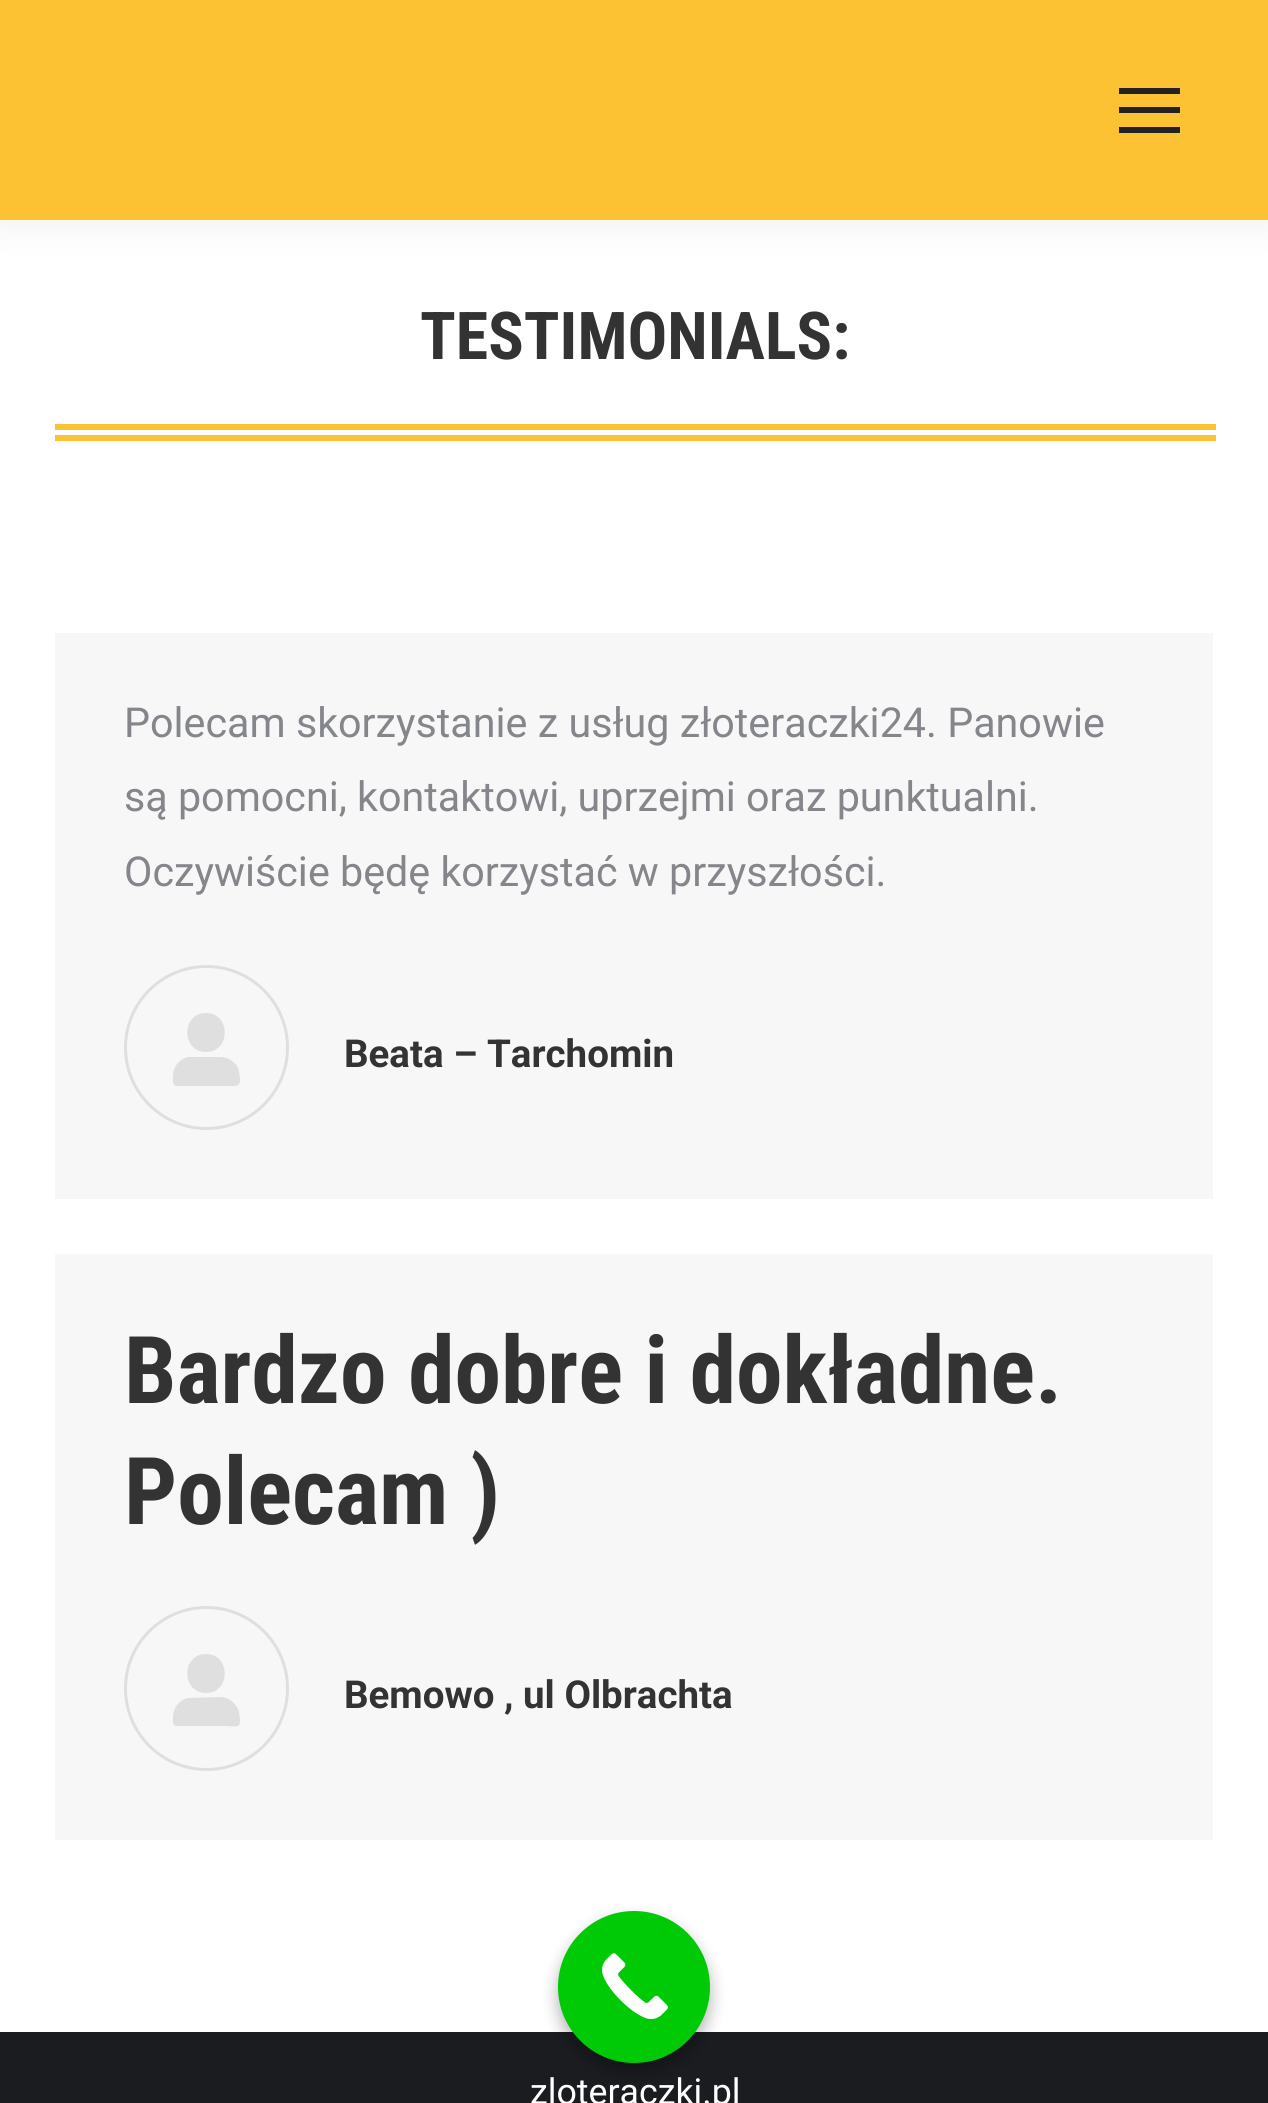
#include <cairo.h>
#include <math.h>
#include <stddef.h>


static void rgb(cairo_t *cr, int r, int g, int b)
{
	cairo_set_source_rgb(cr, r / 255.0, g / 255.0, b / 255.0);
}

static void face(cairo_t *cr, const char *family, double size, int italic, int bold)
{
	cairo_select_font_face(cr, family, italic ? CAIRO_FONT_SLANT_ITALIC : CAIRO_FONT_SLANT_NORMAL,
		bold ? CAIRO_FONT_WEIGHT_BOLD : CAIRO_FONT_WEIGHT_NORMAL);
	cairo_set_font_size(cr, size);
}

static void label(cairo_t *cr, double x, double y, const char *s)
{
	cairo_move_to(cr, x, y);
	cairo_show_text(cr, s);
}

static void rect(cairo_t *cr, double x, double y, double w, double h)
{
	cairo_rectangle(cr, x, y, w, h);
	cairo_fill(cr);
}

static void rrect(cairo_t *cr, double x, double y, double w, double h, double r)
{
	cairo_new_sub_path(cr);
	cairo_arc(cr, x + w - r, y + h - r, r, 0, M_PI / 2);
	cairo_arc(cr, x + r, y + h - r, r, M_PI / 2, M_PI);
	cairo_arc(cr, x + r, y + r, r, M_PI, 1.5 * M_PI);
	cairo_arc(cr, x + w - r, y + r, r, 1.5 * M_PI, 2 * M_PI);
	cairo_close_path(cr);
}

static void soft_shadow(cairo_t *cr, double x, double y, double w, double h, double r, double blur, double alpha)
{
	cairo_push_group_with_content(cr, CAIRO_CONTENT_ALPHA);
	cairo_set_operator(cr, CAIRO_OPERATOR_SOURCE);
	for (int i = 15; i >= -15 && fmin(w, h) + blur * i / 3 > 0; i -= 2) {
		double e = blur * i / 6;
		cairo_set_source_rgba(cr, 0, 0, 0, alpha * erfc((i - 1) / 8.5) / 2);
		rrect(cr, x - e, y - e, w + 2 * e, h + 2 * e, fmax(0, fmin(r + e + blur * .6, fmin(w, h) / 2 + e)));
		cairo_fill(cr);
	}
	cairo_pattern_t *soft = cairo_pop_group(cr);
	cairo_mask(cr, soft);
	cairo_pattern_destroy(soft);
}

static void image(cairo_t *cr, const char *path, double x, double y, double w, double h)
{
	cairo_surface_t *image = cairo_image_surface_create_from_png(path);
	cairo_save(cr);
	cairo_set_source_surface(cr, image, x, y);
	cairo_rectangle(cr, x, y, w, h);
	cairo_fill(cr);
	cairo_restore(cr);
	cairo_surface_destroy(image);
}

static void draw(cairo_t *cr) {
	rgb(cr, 255, 255, 255);
	cairo_paint(cr);
	rgb(cr, 0, 0, 0);
	soft_shadow(cr, -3, -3, 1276, 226, 0, 20.5, 0.07);
	rgb(cr, 253, 193, 52);
	rect(cr, 0, 0, 1268, 220);
	rgb(cr, 34, 34, 34);
	rect(cr, 1119, 107, 61, 6);
	rect(cr, 1119, 88, 61, 6);
	rect(cr, 1119, 127, 61, 6);
	face(cr, "Roboto Condensed", 66, 0, 1);
	rgb(cr, 51, 51, 51);
	label(cr, 420, 359, "TESTIMONIALS:");
	rgb(cr, 253, 193, 52);
	rect(cr, 55, 424, 1161, 6);
	rect(cr, 55, 435, 1161, 6);
	rgb(cr, 247, 247, 247);
	rect(cr, 55, 633, 1158, 566);
	face(cr, "Roboto", 41.25, 0, 0);
	rgb(cr, 133, 134, 140);
	label(cr, 124, 737, "Polecam skorzystanie z usług złoteraczki24. Panowie");
	label(cr, 124, 811, "są pomocni, kontaktowi, uprzejmi oraz punktualni.");
	label(cr, 124, 886, "Oczywiście będę korzystać w przyszłości.");
	cairo_new_path(cr);
	cairo_arc(cr, 206.5, 1047.5, 81, 0, 2 * M_PI);
	rgb(cr, 223, 223, 223);
	cairo_set_line_width(cr, 3);
	cairo_stroke(cr);
	cairo_new_path(cr);
	cairo_move_to(cr, 221, 1057);
	cairo_line_to(cr, 188, 1057);
	cairo_curve_to(cr, 179, 1059, 173, 1067, 173, 1076);
	cairo_curve_to(cr, 172, 1088, 175, 1086, 187, 1086);
	cairo_line_to(cr, 226, 1086);
	cairo_curve_to(cr, 226, 1086, 235, 1087, 238, 1085);
	cairo_curve_to(cr, 240, 1084, 240, 1081, 240, 1079);
	cairo_line_to(cr, 239, 1071);
	cairo_curve_to(cr, 237, 1063, 229, 1057, 221, 1057);
	cairo_close_path(cr);
	cairo_move_to(cr, 206, 1013);
	cairo_curve_to(cr, 181, 1013, 181, 1052, 206, 1052);
	cairo_curve_to(cr, 231, 1052, 231, 1013, 206, 1013);
	cairo_close_path(cr);
	cairo_fill(cr);
	face(cr, "Roboto", 38.5, 0, 1);
	rgb(cr, 51, 51, 51);
	label(cr, 344, 1067, "Beata – Tarchomin");
	rgb(cr, 247, 247, 247);
	rect(cr, 55, 1254, 1158, 586);
	face(cr, "Roboto Condensed", 93.5, 0, 1);
	rgb(cr, 51, 51, 51);
	label(cr, 124, 1403, "Bardzo dobre i dokładne.");
	label(cr, 124, 1524, "Polecam )");
	cairo_new_path(cr);
	cairo_arc(cr, 206.5, 1688.5, 81, 0, 2 * M_PI);
	rgb(cr, 223, 223, 223);
	cairo_stroke(cr);
	cairo_new_path(cr);
	cairo_move_to(cr, 221, 1697);
	cairo_line_to(cr, 188, 1698);
	cairo_curve_to(cr, 179, 1700, 173, 1708, 173, 1717);
	cairo_curve_to(cr, 172, 1728, 175, 1726, 187, 1726);
	cairo_line_to(cr, 226, 1726);
	cairo_curve_to(cr, 226, 1726, 235, 1727, 238, 1726);
	cairo_curve_to(cr, 240, 1725, 240, 1722, 240, 1720);
	cairo_line_to(cr, 239, 1712);
	cairo_curve_to(cr, 237, 1704, 229, 1697, 221, 1697);
	cairo_close_path(cr);
	cairo_move_to(cr, 206, 1654);
	cairo_curve_to(cr, 181, 1654, 181, 1693, 206, 1693);
	cairo_curve_to(cr, 231, 1693, 231, 1654, 206, 1654);
	cairo_close_path(cr);
	cairo_fill(cr);
	face(cr, "Roboto", 38.5, 0, 1);
	rgb(cr, 51, 51, 51);
	label(cr, 344, 1708, "Bemowo , ul Olbrachta");
	rgb(cr, 26, 28, 32);
	rect(cr, 0, 2032, 1268, 71);
	face(cr, "Roboto", 35.75, 0, 0);
	rgb(cr, 255, 255, 255);
	label(cr, 530, 2104, "zloteraczki.pl");
	rgb(cr, 0, 0, 0);
	soft_shadow(cr, 558, 1920, 152, 151, 75.5, 8, 0.3);
	rgb(cr, 0, 201, 6);
	cairo_arc(cr, 634, 1987, 76, 0, 2 * M_PI);
	cairo_fill(cr);
	image(cr, "image0.png", 602, 1953, 66, 67);
}

int main(void) {
	cairo_surface_t *surface = cairo_image_surface_create(CAIRO_FORMAT_RGB24, 1268, 2103);
	cairo_t *cr = cairo_create(surface);
	cairo_font_options_t *options = cairo_font_options_create();
	cairo_font_options_set_hint_metrics(options, CAIRO_HINT_METRICS_OFF);
	cairo_font_options_set_hint_style(options, CAIRO_HINT_STYLE_NONE);
	cairo_set_font_options(cr, options);
	cairo_set_miter_limit(cr, 4);
	draw(cr);
	cairo_surface_write_to_png(surface, "render.png");
	cairo_font_options_destroy(options);
	cairo_destroy(cr);
	cairo_surface_destroy(surface);
	return 0;
}
